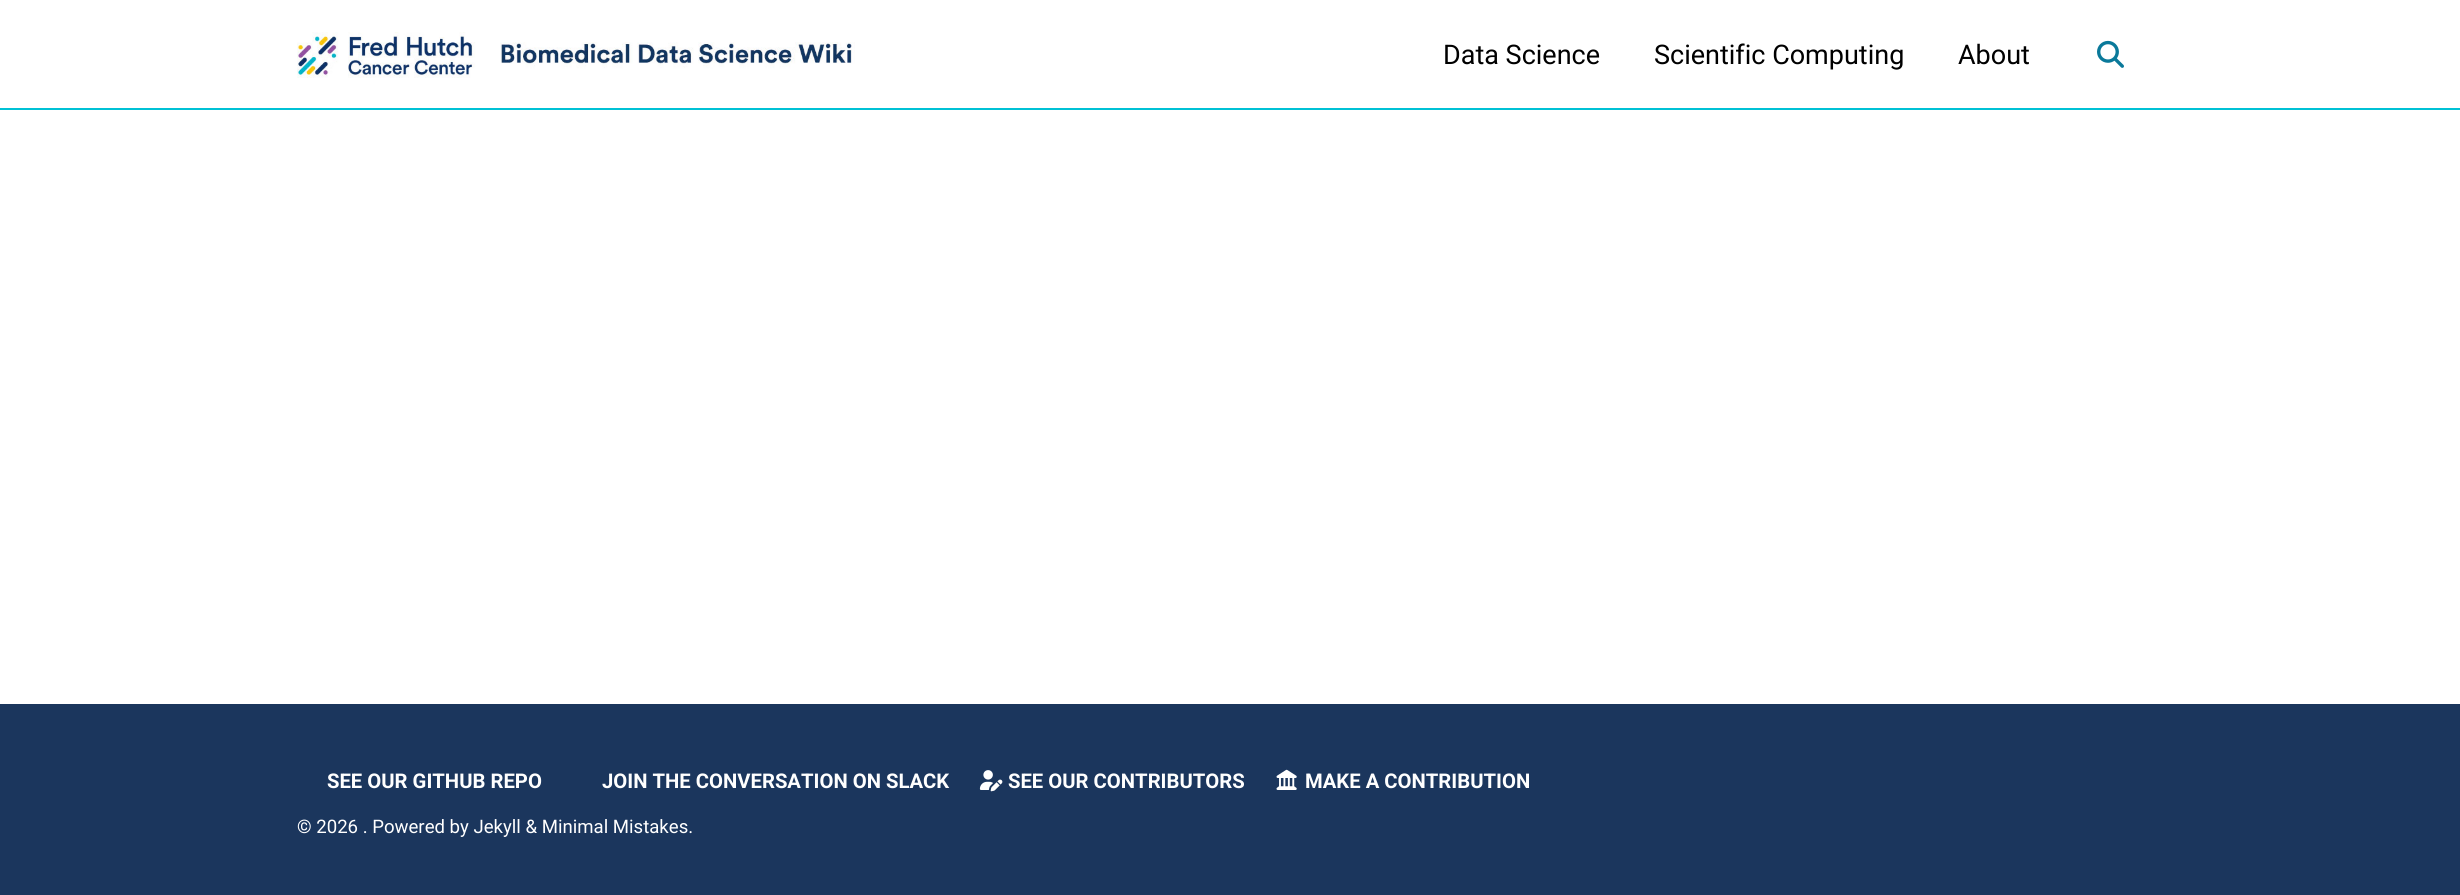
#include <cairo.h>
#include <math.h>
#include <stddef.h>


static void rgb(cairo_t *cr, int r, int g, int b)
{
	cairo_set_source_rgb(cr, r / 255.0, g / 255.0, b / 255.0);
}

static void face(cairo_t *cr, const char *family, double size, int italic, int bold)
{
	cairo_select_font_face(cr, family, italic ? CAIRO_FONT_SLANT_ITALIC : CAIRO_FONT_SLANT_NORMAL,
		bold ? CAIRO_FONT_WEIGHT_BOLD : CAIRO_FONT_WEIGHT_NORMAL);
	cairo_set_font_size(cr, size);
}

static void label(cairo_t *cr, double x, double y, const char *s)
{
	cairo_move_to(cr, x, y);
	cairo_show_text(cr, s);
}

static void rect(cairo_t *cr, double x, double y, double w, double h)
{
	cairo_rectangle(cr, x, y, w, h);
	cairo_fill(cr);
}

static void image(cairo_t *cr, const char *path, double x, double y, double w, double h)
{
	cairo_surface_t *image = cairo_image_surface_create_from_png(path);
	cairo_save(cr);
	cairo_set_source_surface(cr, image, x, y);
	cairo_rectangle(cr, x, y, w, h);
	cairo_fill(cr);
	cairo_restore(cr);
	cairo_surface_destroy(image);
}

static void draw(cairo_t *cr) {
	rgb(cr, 255, 255, 255);
	cairo_paint(cr);
	rgb(cr, 0, 193, 213);
	rect(cr, 0, 108, 2460, 2);
	image(cr, "image0.png", 297, 32, 558, 46);
	face(cr, "Roboto", 27, 0, 0);
	rgb(cr, 0, 0, 0);
	label(cr, 1443, 64, "Data Science");
	label(cr, 1654, 64, "Scientific Computing");
	label(cr, 1958, 64, "About");
	image(cr, "image1.png", 2097, 40, 27, 28);
	rgb(cr, 27, 54, 93);
	rect(cr, 0, 704, 2460, 191);
	face(cr, "Roboto", 20.25, 0, 1);
	rgb(cr, 255, 255, 255);
	label(cr, 327, 788, "SEE OUR GITHUB REPO");
	label(cr, 602, 788, "JOIN THE CONVERSATION ON SLACK");
	image(cr, "image2.png", 979, 770, 24, 22);
	label(cr, 1008, 788, "SEE OUR CONTRIBUTORS");
	image(cr, "image3.png", 1276, 769, 21, 21);
	label(cr, 1305, 788, "MAKE A CONTRIBUTION");
	face(cr, "Roboto", 18.6, 0, 0);
	label(cr, 297, 833, "© 2026 . Powered by Jekyll & Minimal Mistakes.");
}

int main(void) {
	cairo_surface_t *surface = cairo_image_surface_create(CAIRO_FORMAT_RGB24, 2460, 895);
	cairo_t *cr = cairo_create(surface);
	cairo_font_options_t *options = cairo_font_options_create();
	cairo_font_options_set_hint_metrics(options, CAIRO_HINT_METRICS_OFF);
	cairo_font_options_set_hint_style(options, CAIRO_HINT_STYLE_NONE);
	cairo_set_font_options(cr, options);
	cairo_set_miter_limit(cr, 4);
	draw(cr);
	cairo_surface_write_to_png(surface, "render.png");
	cairo_font_options_destroy(options);
	cairo_destroy(cr);
	cairo_surface_destroy(surface);
	return 0;
}
